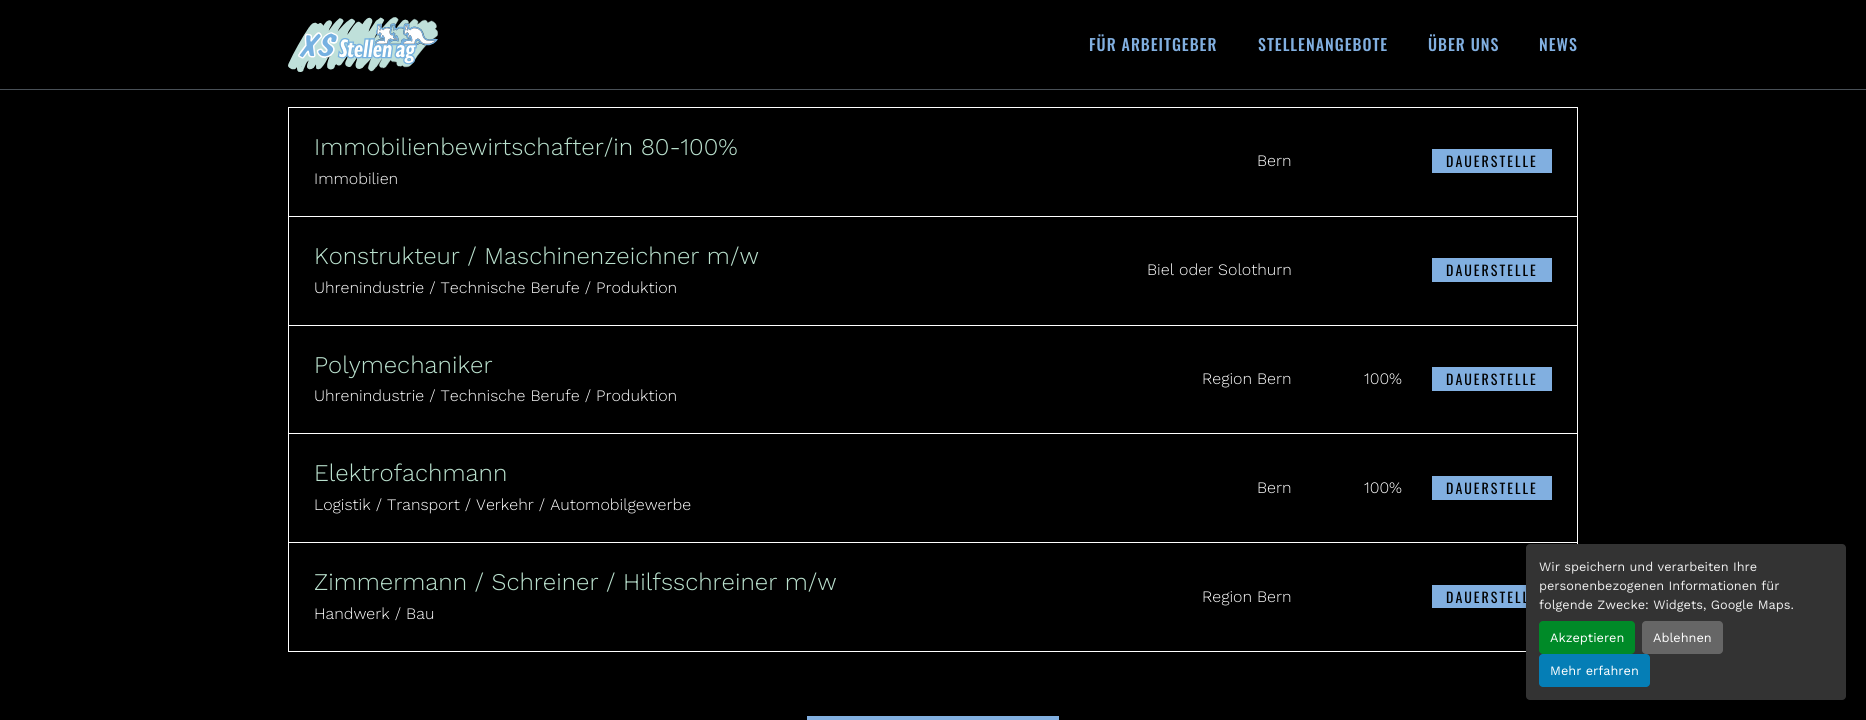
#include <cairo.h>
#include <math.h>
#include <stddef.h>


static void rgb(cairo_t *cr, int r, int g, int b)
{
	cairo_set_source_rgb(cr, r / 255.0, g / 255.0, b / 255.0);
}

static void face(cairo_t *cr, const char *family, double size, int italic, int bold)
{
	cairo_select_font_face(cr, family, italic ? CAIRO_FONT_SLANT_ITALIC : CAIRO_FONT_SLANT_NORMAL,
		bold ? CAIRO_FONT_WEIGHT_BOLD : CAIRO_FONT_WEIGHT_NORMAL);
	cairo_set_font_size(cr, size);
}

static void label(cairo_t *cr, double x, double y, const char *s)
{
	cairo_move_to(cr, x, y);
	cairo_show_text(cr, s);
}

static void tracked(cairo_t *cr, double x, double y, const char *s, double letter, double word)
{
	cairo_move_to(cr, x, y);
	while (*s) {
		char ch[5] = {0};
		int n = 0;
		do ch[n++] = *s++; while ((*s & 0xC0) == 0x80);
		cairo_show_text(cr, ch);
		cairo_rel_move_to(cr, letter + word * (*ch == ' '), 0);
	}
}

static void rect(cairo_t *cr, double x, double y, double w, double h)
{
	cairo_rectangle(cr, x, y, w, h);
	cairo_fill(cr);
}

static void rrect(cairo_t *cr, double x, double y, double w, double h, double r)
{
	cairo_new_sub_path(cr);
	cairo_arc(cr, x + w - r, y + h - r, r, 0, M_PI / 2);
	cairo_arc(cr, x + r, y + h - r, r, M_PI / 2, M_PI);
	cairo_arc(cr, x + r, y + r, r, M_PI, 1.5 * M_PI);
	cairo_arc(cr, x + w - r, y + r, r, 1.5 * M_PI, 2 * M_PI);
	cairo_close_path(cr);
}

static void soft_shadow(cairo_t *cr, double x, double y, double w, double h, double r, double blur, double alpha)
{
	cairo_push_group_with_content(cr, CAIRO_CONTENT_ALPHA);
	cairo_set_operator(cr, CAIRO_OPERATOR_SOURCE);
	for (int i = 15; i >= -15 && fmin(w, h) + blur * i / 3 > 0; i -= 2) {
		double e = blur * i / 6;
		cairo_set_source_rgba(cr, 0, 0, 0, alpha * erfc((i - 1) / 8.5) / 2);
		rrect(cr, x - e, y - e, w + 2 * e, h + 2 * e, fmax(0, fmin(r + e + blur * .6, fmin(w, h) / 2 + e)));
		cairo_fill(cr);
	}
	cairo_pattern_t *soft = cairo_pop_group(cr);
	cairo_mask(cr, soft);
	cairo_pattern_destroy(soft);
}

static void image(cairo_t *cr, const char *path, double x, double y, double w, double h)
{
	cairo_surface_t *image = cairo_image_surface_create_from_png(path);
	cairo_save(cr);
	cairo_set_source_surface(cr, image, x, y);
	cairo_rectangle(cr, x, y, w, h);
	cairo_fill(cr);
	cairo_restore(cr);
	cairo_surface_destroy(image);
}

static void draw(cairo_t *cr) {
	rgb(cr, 0, 0, 0);
	cairo_paint(cr);
	rgb(cr, 73, 80, 87);
	rect(cr, 0, 89, 1866, 1);
	image(cr, "image0.png", 288, 17, 150, 55);
	face(cr, "Oswald Medium", 16, 0, 0);
	rgb(cr, 129, 175, 224);
	tracked(cr, 1089, 51, "FÜR ARBEITGEBER", 1, 0);
	tracked(cr, 1258, 51, "STELLENANGEBOTE", 1, 0);
	tracked(cr, 1428, 51, "ÜBER UNS", 1, 0);
	tracked(cr, 1539, 51, "NEWS", 1, 0);
	rgb(cr, 255, 255, 255);
	rect(cr, 288, 651, 1238, 1);
	rect(cr, 288, 107, 1290, 1);
	rect(cr, 1577, 107, 1, 109);
	rect(cr, 288, 107, 1, 109);
	face(cr, "Work Sans Light", 24, 0, 0);
	rgb(cr, 186, 225, 206);
	label(cr, 314, 155, "Immobilienbewirtschafter/in 80-100%");
	face(cr, "Work Sans Light", 16, 0, 0);
	rgb(cr, 255, 255, 255);
	label(cr, 314, 184, "Immobilien");
	label(cr, 1257, 166, "Bern");
	rgb(cr, 129, 175, 224);
	rect(cr, 1432, 149, 120, 24);
	face(cr, "Oswald", 14, 0, 0);
	rgb(cr, 0, 0, 0);
	tracked(cr, 1446, 167, "DAUERSTELLE", 2, 0);
	rgb(cr, 255, 255, 255);
	rect(cr, 288, 216, 1290, 1);
	rect(cr, 1577, 216, 1, 109);
	rect(cr, 288, 216, 1, 109);
	face(cr, "Work Sans Light", 24, 0, 0);
	rgb(cr, 186, 225, 206);
	label(cr, 314, 264, "Konstrukteur / Maschinenzeichner m/w");
	face(cr, "Work Sans Light", 16, 0, 0);
	rgb(cr, 255, 255, 255);
	label(cr, 314, 293, "Uhrenindustrie / Technische Berufe / Produktion");
	label(cr, 1147, 275, "Biel oder Solothurn");
	rgb(cr, 129, 175, 224);
	rect(cr, 1432, 258, 120, 24);
	face(cr, "Oswald", 14, 0, 0);
	rgb(cr, 0, 0, 0);
	tracked(cr, 1446, 276, "DAUERSTELLE", 2, 0);
	rgb(cr, 255, 255, 255);
	rect(cr, 288, 325, 1290, 1);
	rect(cr, 1577, 325, 1, 108);
	rect(cr, 288, 325, 1, 108);
	face(cr, "Work Sans Light", 24, 0, 0);
	rgb(cr, 186, 225, 206);
	label(cr, 314, 373, "Polymechaniker");
	face(cr, "Work Sans Light", 16, 0, 0);
	rgb(cr, 255, 255, 255);
	label(cr, 314, 401, "Uhrenindustrie / Technische Berufe / Produktion");
	label(cr, 1202, 384, "Region Bern");
	label(cr, 1364, 384, "100%");
	rgb(cr, 129, 175, 224);
	rect(cr, 1432, 367, 120, 24);
	face(cr, "Oswald", 14, 0, 0);
	rgb(cr, 0, 0, 0);
	tracked(cr, 1446, 385, "DAUERSTELLE", 2, 0);
	rgb(cr, 255, 255, 255);
	rect(cr, 288, 433, 1290, 1);
	rect(cr, 1577, 433, 1, 109);
	rect(cr, 288, 433, 1, 109);
	face(cr, "Work Sans Light", 24, 0, 0);
	rgb(cr, 186, 225, 206);
	label(cr, 314, 481, "Elektrofachmann");
	face(cr, "Work Sans Light", 16, 0, 0);
	rgb(cr, 255, 255, 255);
	label(cr, 314, 510, "Logistik / Transport / Verkehr / Automobilgewerbe");
	label(cr, 1257, 493, "Bern");
	label(cr, 1364, 493, "100%");
	rgb(cr, 129, 175, 224);
	rect(cr, 1432, 476, 120, 24);
	face(cr, "Oswald", 14, 0, 0);
	rgb(cr, 0, 0, 0);
	tracked(cr, 1446, 494, "DAUERSTELLE", 2, 0);
	rgb(cr, 255, 255, 255);
	rect(cr, 288, 542, 1290, 1);
	rect(cr, 1577, 542, 1, 2);
	rect(cr, 288, 542, 1, 109);
	face(cr, "Work Sans Light", 24, 0, 0);
	rgb(cr, 186, 225, 206);
	label(cr, 314, 590, "Zimmermann / Schreiner / Hilfsschreiner m/w");
	face(cr, "Work Sans Light", 16, 0, 0);
	rgb(cr, 255, 255, 255);
	label(cr, 314, 619, "Handwerk / Bau");
	label(cr, 1202, 602, "Region Bern");
	rgb(cr, 129, 175, 224);
	rect(cr, 1432, 585, 94, 23);
	face(cr, "Oswald", 14, 0, 0);
	rgb(cr, 0, 0, 0);
	tracked(cr, 1446, 603, "DAUERSTELL", 2, 0);
	rgb(cr, 129, 175, 224);
	rect(cr, 807, 716, 252, 4);
	rgb(cr, 0, 0, 0);
	soft_shadow(cr, 1526, 548, 320, 156, 4, 3, 0.2);
	rgb(cr, 51, 51, 51);
	rrect(cr, 1526, 544, 320, 156, 4);
	cairo_fill(cr);
	face(cr, "Work Sans", 12.75, 0, 0);
	rgb(cr, 238, 238, 238);
	label(cr, 1539, 571, "Wir speichern und verarbeiten Ihre");
	label(cr, 1539, 590, "personenbezogenen Informationen für");
	label(cr, 1539, 609, "folgende Zwecke: Widgets, Google Maps.");
	rgb(cr, 0, 138, 40);
	rrect(cr, 1539, 621, 96, 33, 4);
	cairo_fill(cr);
	rgb(cr, 255, 255, 255);
	label(cr, 1550, 642, "Akzeptieren");
	rgb(cr, 102, 102, 102);
	rrect(cr, 1642, 621, 81, 33, 4);
	cairo_fill(cr);
	rgb(cr, 255, 255, 255);
	label(cr, 1653, 642, "Ablehnen");
	rgb(cr, 5, 126, 182);
	rrect(cr, 1539, 654, 111, 33, 4);
	cairo_fill(cr);
	rgb(cr, 255, 255, 255);
	label(cr, 1550, 675, "Mehr erfahren");
}

int main(void) {
	cairo_surface_t *surface = cairo_image_surface_create(CAIRO_FORMAT_RGB24, 1866, 720);
	cairo_t *cr = cairo_create(surface);
	cairo_font_options_t *options = cairo_font_options_create();
	cairo_font_options_set_hint_metrics(options, CAIRO_HINT_METRICS_OFF);
	cairo_font_options_set_hint_style(options, CAIRO_HINT_STYLE_NONE);
	cairo_set_font_options(cr, options);
	cairo_set_miter_limit(cr, 4);
	draw(cr);
	cairo_surface_write_to_png(surface, "render.png");
	cairo_font_options_destroy(options);
	cairo_destroy(cr);
	cairo_surface_destroy(surface);
	return 0;
}
